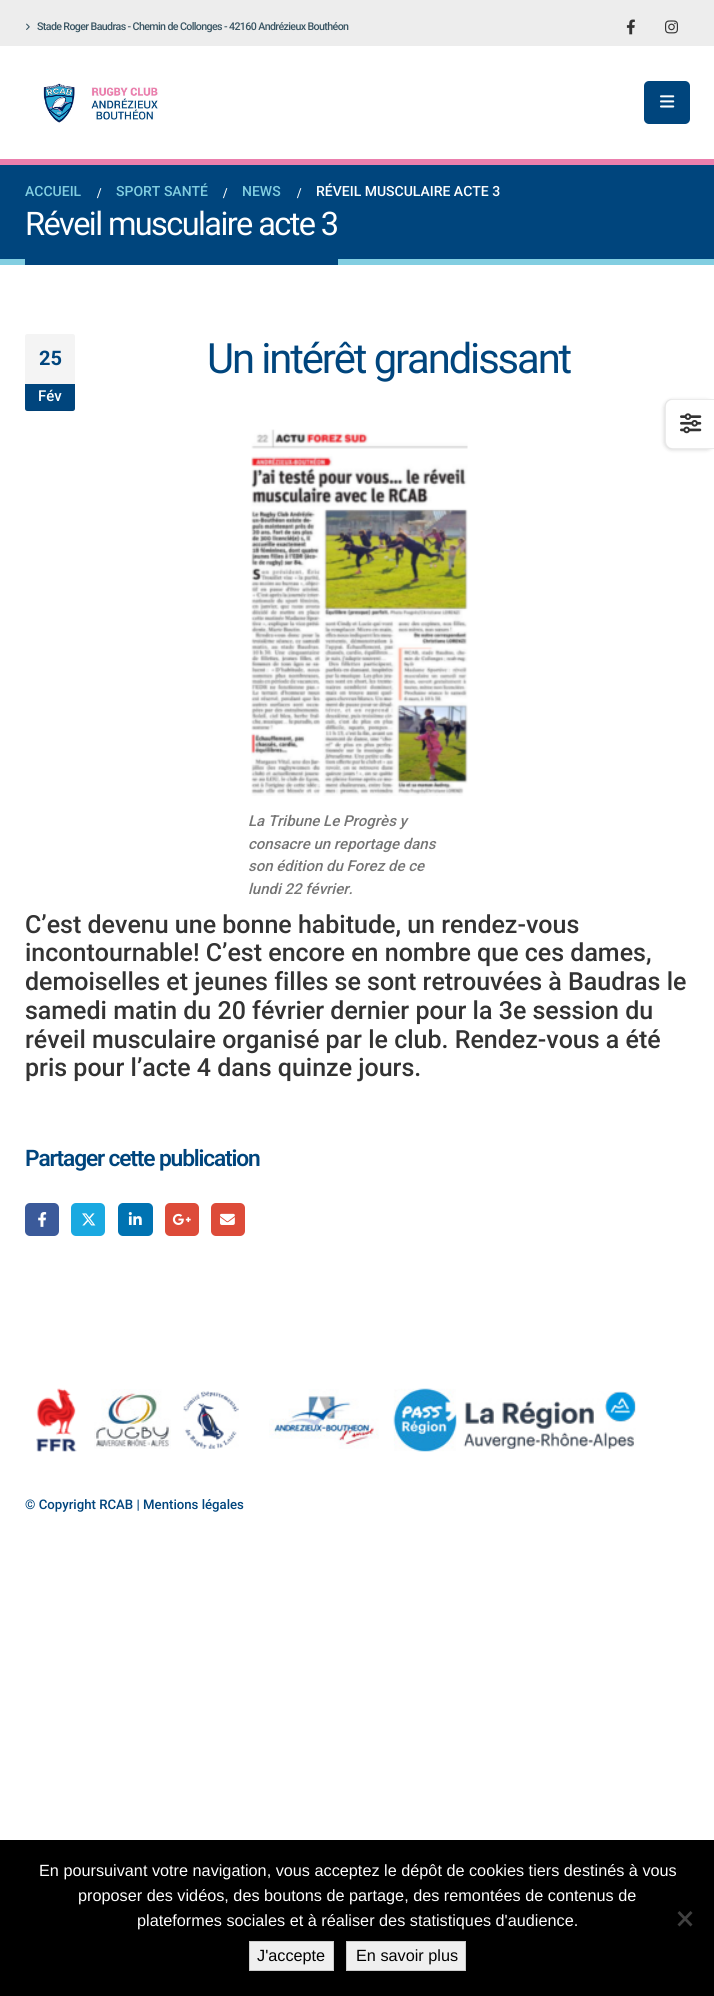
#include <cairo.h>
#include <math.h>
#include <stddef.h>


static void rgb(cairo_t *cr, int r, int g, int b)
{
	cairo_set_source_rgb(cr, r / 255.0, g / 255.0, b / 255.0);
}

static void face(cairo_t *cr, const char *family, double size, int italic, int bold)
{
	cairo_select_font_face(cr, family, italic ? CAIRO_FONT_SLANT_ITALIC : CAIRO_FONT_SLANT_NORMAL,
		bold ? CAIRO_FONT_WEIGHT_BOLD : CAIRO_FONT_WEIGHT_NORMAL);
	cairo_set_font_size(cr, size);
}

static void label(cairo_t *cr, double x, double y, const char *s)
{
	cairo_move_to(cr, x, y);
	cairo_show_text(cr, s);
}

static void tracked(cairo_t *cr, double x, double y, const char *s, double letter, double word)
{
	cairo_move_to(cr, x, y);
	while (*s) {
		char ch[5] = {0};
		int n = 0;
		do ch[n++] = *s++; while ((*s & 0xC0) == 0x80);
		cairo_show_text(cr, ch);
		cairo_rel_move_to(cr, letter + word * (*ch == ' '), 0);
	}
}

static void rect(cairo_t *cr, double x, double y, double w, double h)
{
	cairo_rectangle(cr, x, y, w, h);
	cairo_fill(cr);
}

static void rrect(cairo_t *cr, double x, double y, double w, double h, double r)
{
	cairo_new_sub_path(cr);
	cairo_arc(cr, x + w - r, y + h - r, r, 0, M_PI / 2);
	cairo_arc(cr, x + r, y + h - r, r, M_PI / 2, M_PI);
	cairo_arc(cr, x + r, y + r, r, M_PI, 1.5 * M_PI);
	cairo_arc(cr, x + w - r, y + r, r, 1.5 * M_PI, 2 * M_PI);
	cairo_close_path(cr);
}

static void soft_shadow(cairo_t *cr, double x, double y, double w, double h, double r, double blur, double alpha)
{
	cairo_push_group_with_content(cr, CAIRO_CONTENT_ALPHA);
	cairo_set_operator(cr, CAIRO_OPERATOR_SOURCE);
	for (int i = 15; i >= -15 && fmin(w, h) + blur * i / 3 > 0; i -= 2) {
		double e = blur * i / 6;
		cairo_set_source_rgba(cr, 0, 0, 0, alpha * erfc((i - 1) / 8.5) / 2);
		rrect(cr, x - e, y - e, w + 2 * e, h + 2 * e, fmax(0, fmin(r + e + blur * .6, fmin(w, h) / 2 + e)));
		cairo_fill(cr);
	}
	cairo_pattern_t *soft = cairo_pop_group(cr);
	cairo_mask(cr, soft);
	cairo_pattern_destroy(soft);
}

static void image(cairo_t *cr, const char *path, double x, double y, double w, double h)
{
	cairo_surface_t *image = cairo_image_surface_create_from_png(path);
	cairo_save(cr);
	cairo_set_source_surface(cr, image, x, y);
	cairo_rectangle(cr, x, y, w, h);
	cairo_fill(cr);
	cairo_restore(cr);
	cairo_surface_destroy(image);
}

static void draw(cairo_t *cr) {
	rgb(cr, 255, 255, 255);
	cairo_paint(cr);
	rgb(cr, 237, 237, 237);
	rect(cr, 0, 0, 714, 46);
	image(cr, "image0.png", 26, 23, 4, 7);
	face(cr, "Roboto Medium", 10.65, 0, 0);
	rgb(cr, 57, 85, 99);
	tracked(cr, 37, 30, "Stade Roger Baudras - Chemin de Collonges - 42160 Andrézieux Bouthéon", -0.62, 0);
	image(cr, "image1.png", 626, 19, 9, 16);
	image(cr, "image2.png", 665, 20, 13, 14);
	image(cr, "image3.png", 43, 83, 116, 40);
	rgb(cr, 0, 69, 125);
	rrect(cr, 644, 81, 46, 43, 5);
	cairo_fill(cr);
	image(cr, "image4.png", 660, 95, 15, 13);
	rect(cr, 0, 165, 714, 94);
	rgb(cr, 235, 127, 173);
	rect(cr, 0, 159, 714, 6);
	rgb(cr, 130, 206, 225);
	rect(cr, 0, 259, 714, 6);
	face(cr, "Roboto Medium", 14, 0, 0);
	label(cr, 25, 196, "ACCUEIL");
	face(cr, "Liberation Serif", 15, 0, 1);
	rgb(cr, 255, 255, 255);
	label(cr, 97, 198, "/");
	face(cr, "Roboto Medium", 14, 0, 0);
	rgb(cr, 130, 206, 225);
	label(cr, 116, 196, "SPORT SANTÉ");
	face(cr, "Liberation Serif", 15, 0, 1);
	rgb(cr, 255, 255, 255);
	label(cr, 223, 198, "/");
	face(cr, "Roboto Medium", 14, 0, 0);
	rgb(cr, 130, 206, 225);
	label(cr, 242, 196, "NEWS");
	face(cr, "Liberation Serif", 15, 0, 1);
	rgb(cr, 255, 255, 255);
	label(cr, 297, 198, "/");
	face(cr, "Roboto Medium", 14, 0, 0);
	label(cr, 316, 196, "RÉVEIL MUSCULAIRE ACTE 3");
	face(cr, "Roboto", 32.5, 0, 0);
	tracked(cr, 25, 235, "Réveil musculaire acte 3", -1.6, 0);
	rgb(cr, 0, 69, 125);
	rect(cr, 25, 259, 313, 6);
	face(cr, "Roboto", 41.75, 0, 0);
	tracked(cr, 207, 373, "Un intérêt grandissant", -2.1, 0);
	image(cr, "image5.png", 251, 429, 217, 367);
	face(cr, "Roboto Medium", 15, 1, 0);
	rgb(cr, 118, 118, 118);
	label(cr, 248, 826, "La Tribune Le Progrès y");
	label(cr, 248, 849, "consacre un reportage dans");
	label(cr, 248, 871, "son édition du Forez de ce");
	label(cr, 248, 894, "lundi 22 février.");
	face(cr, "Roboto Medium", 25, 0, 0);
	rgb(cr, 51, 51, 51);
	label(cr, 25, 933, "C’est devenu une bonne habitude, un rendez-vous");
	label(cr, 25, 961, "incontournable! C’est encore en nombre que ces dames,");
	label(cr, 25, 990, "demoiselles et jeunes filles se sont retrouvées à Baudras le");
	label(cr, 25, 1019, "samedi matin du 20 février dernier pour la 3e session du");
	label(cr, 25, 1048, "réveil musculaire organisé par le club. Rendez-vous a été");
	label(cr, 25, 1076, "pris pour l’acte 4 dans quinze jours.");
	rgb(cr, 244, 244, 244);
	cairo_new_path(cr);
	cairo_move_to(cr, 27.5, 334);
	cairo_line_to(cr, 72.5, 334);
	cairo_curve_to(cr, 74, 334, 75, 335, 75, 336.5);
	cairo_line_to(cr, 75, 384);
	cairo_line_to(cr, 25, 384);
	cairo_line_to(cr, 25, 336.5);
	cairo_curve_to(cr, 25, 335, 26, 334, 27.5, 334);
	cairo_close_path(cr);
	cairo_fill(cr);
	face(cr, "Roboto", 20, 0, 1);
	rgb(cr, 0, 69, 125);
	label(cr, 39, 365, "25");
	cairo_new_path(cr);
	cairo_move_to(cr, 25, 384);
	cairo_line_to(cr, 75, 384);
	cairo_line_to(cr, 75, 408.5);
	cairo_curve_to(cr, 75, 410, 74, 411, 72.5, 411);
	cairo_line_to(cr, 27.5, 411);
	cairo_curve_to(cr, 26, 411, 25, 410, 25, 408.5);
	cairo_close_path(cr);
	cairo_fill(cr);
	cairo_set_source_rgba(cr, 0, 0, 0, 0.07);
	cairo_new_path(cr);
	cairo_move_to(cr, 25, 408);
	cairo_curve_to(cr, 25, 413, 32, 411, 35, 411);
	cairo_line_to(cr, 65, 411);
	cairo_curve_to(cr, 68, 411, 75, 413, 75, 408);
	cairo_line_to(cr, 74, 410);
	cairo_curve_to(cr, 72, 410, 28, 410, 26, 410);
	cairo_close_path(cr);
	cairo_fill(cr);
	face(cr, "Roboto Medium", 15, 0, 0);
	rgb(cr, 255, 255, 255);
	label(cr, 38, 401, "Fév");
	face(cr, "Roboto SemiBold", 22.75, 0, 0);
	rgb(cr, 0, 69, 125);
	tracked(cr, 25, 1166, "Partager cette publication", -1.15, 0);
	rgb(cr, 59, 90, 154);
	rrect(cr, 25, 1203, 34, 33, 5);
	cairo_fill(cr);
	image(cr, "image6.png", 38, 1212, 9, 15);
	rgb(cr, 26, 169, 225);
	rrect(cr, 71, 1203, 34, 33, 5);
	cairo_fill(cr);
	image(cr, "image7.png", 82, 1213, 14, 13);
	rgb(cr, 0, 115, 178);
	rrect(cr, 118, 1203, 35, 33, 5);
	cairo_fill(cr);
	image(cr, "image8.png", 128, 1212, 14, 13);
	rgb(cr, 221, 75, 57);
	rrect(cr, 165, 1203, 34, 33, 5);
	cairo_fill(cr);
	image(cr, "image9.png", 172, 1213, 19, 12);
	rrect(cr, 211, 1203, 34, 33, 5);
	cairo_fill(cr);
	image(cr, "image10.png", 220, 1213, 15, 12);
	rgb(cr, 0, 0, 0);
	soft_shadow(cr, 664, 400, 50, 50, 8, 2, 0.15);
	rgb(cr, 255, 255, 255);
	cairo_new_path(cr);
	cairo_move_to(cr, 673, 399);
	cairo_line_to(cr, 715, 399);
	cairo_line_to(cr, 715, 449);
	cairo_line_to(cr, 673, 449);
	cairo_curve_to(cr, 668.5, 449, 665, 445.5, 665, 441);
	cairo_line_to(cr, 665, 407);
	cairo_curve_to(cr, 665, 402.5, 668.5, 399, 673, 399);
	cairo_close_path(cr);
	cairo_fill(cr);
	cairo_set_source_rgba(cr, 0, 0, 0, 0.08);
	cairo_set_fill_rule(cr, CAIRO_FILL_RULE_EVEN_ODD);
	cairo_new_path(cr);
	cairo_move_to(cr, 672, 399);
	cairo_line_to(cr, 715, 399);
	cairo_line_to(cr, 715, 449);
	cairo_line_to(cr, 672, 449);
	cairo_curve_to(cr, 668, 449, 665, 445, 665, 441);
	cairo_line_to(cr, 665, 406);
	cairo_curve_to(cr, 665, 402, 668, 399, 672, 399);
	cairo_close_path(cr);
	cairo_move_to(cr, 672, 400);
	cairo_line_to(cr, 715, 400);
	cairo_line_to(cr, 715, 448);
	cairo_line_to(cr, 672, 448);
	cairo_curve_to(cr, 669, 448, 666, 445, 666, 441);
	cairo_line_to(cr, 666, 406);
	cairo_curve_to(cr, 666, 403, 669, 400, 672, 400);
	cairo_close_path(cr);
	cairo_fill(cr);
	image(cr, "image11.png", 680, 413, 22, 21);
	image(cr, "image12.png", 36, 1388, 41, 64);
	image(cr, "image13.png", 94, 1389, 77, 60);
	image(cr, "image14.png", 183, 1391, 56, 58);
	image(cr, "image15.png", 269, 1389, 110, 60);
	image(cr, "image16.png", 393, 1388, 64, 64);
	image(cr, "image17.png", 463, 1391, 173, 58);
	face(cr, "Roboto Medium", 13.2, 0, 0);
	rgb(cr, 0, 69, 125);
	label(cr, 25, 1509, "© Copyright RCAB | Mentions légales");
	rgb(cr, 0, 0, 0);
	rect(cr, 0, 1840, 714, 156);
	face(cr, "Liberation Sans", 16.25, 0, 0);
	rgb(cr, 255, 255, 255);
	label(cr, 39, 1876, "En poursuivant votre navigation, vous acceptez le dépôt de cookies tiers destinés à vous");
	label(cr, 78, 1901, "proposer des vidéos, des boutons de partage, des remontées de contenus de");
	label(cr, 137, 1926, "plateformes sociales et à réaliser des statistiques d'audience.");
	rgb(cr, 64, 64, 64);
	cairo_set_fill_rule(cr, CAIRO_FILL_RULE_WINDING);
	cairo_new_path(cr);
	cairo_move_to(cr, 690.5, 1911);
	cairo_line_to(cr, 692.5, 1913);
	cairo_line_to(cr, 679.5, 1926.5);
	cairo_line_to(cr, 677.5, 1924.5);
	cairo_close_path(cr);
	cairo_fill(cr);
	cairo_new_path(cr);
	cairo_move_to(cr, 677.5, 1913);
	cairo_line_to(cr, 679.5, 1911);
	cairo_line_to(cr, 692.5, 1924.5);
	cairo_line_to(cr, 690.5, 1926.5);
	cairo_close_path(cr);
	cairo_fill(cr);
	rgb(cr, 239, 239, 239);
	cairo_rectangle(cr, 249.5, 1941.5, 84, 29);
	cairo_fill_preserve(cr);
	rgb(cr, 204, 204, 204);
	cairo_set_line_width(cr, 1);
	cairo_stroke(cr);
	rgb(cr, 0, 0, 0);
	label(cr, 257, 1961, "J'accepte");
	rgb(cr, 239, 239, 239);
	cairo_rectangle(cr, 346.5, 1941.5, 119, 29);
	cairo_fill_preserve(cr);
	rgb(cr, 204, 204, 204);
	cairo_stroke(cr);
	rgb(cr, 0, 0, 0);
	label(cr, 356, 1961, "En savoir plus");
}

int main(void) {
	cairo_surface_t *surface = cairo_image_surface_create(CAIRO_FORMAT_RGB24, 714, 1996);
	cairo_t *cr = cairo_create(surface);
	cairo_font_options_t *options = cairo_font_options_create();
	cairo_font_options_set_hint_metrics(options, CAIRO_HINT_METRICS_OFF);
	cairo_font_options_set_hint_style(options, CAIRO_HINT_STYLE_NONE);
	cairo_set_font_options(cr, options);
	cairo_set_miter_limit(cr, 4);
	draw(cr);
	cairo_surface_write_to_png(surface, "render.png");
	cairo_font_options_destroy(options);
	cairo_destroy(cr);
	cairo_surface_destroy(surface);
	return 0;
}
